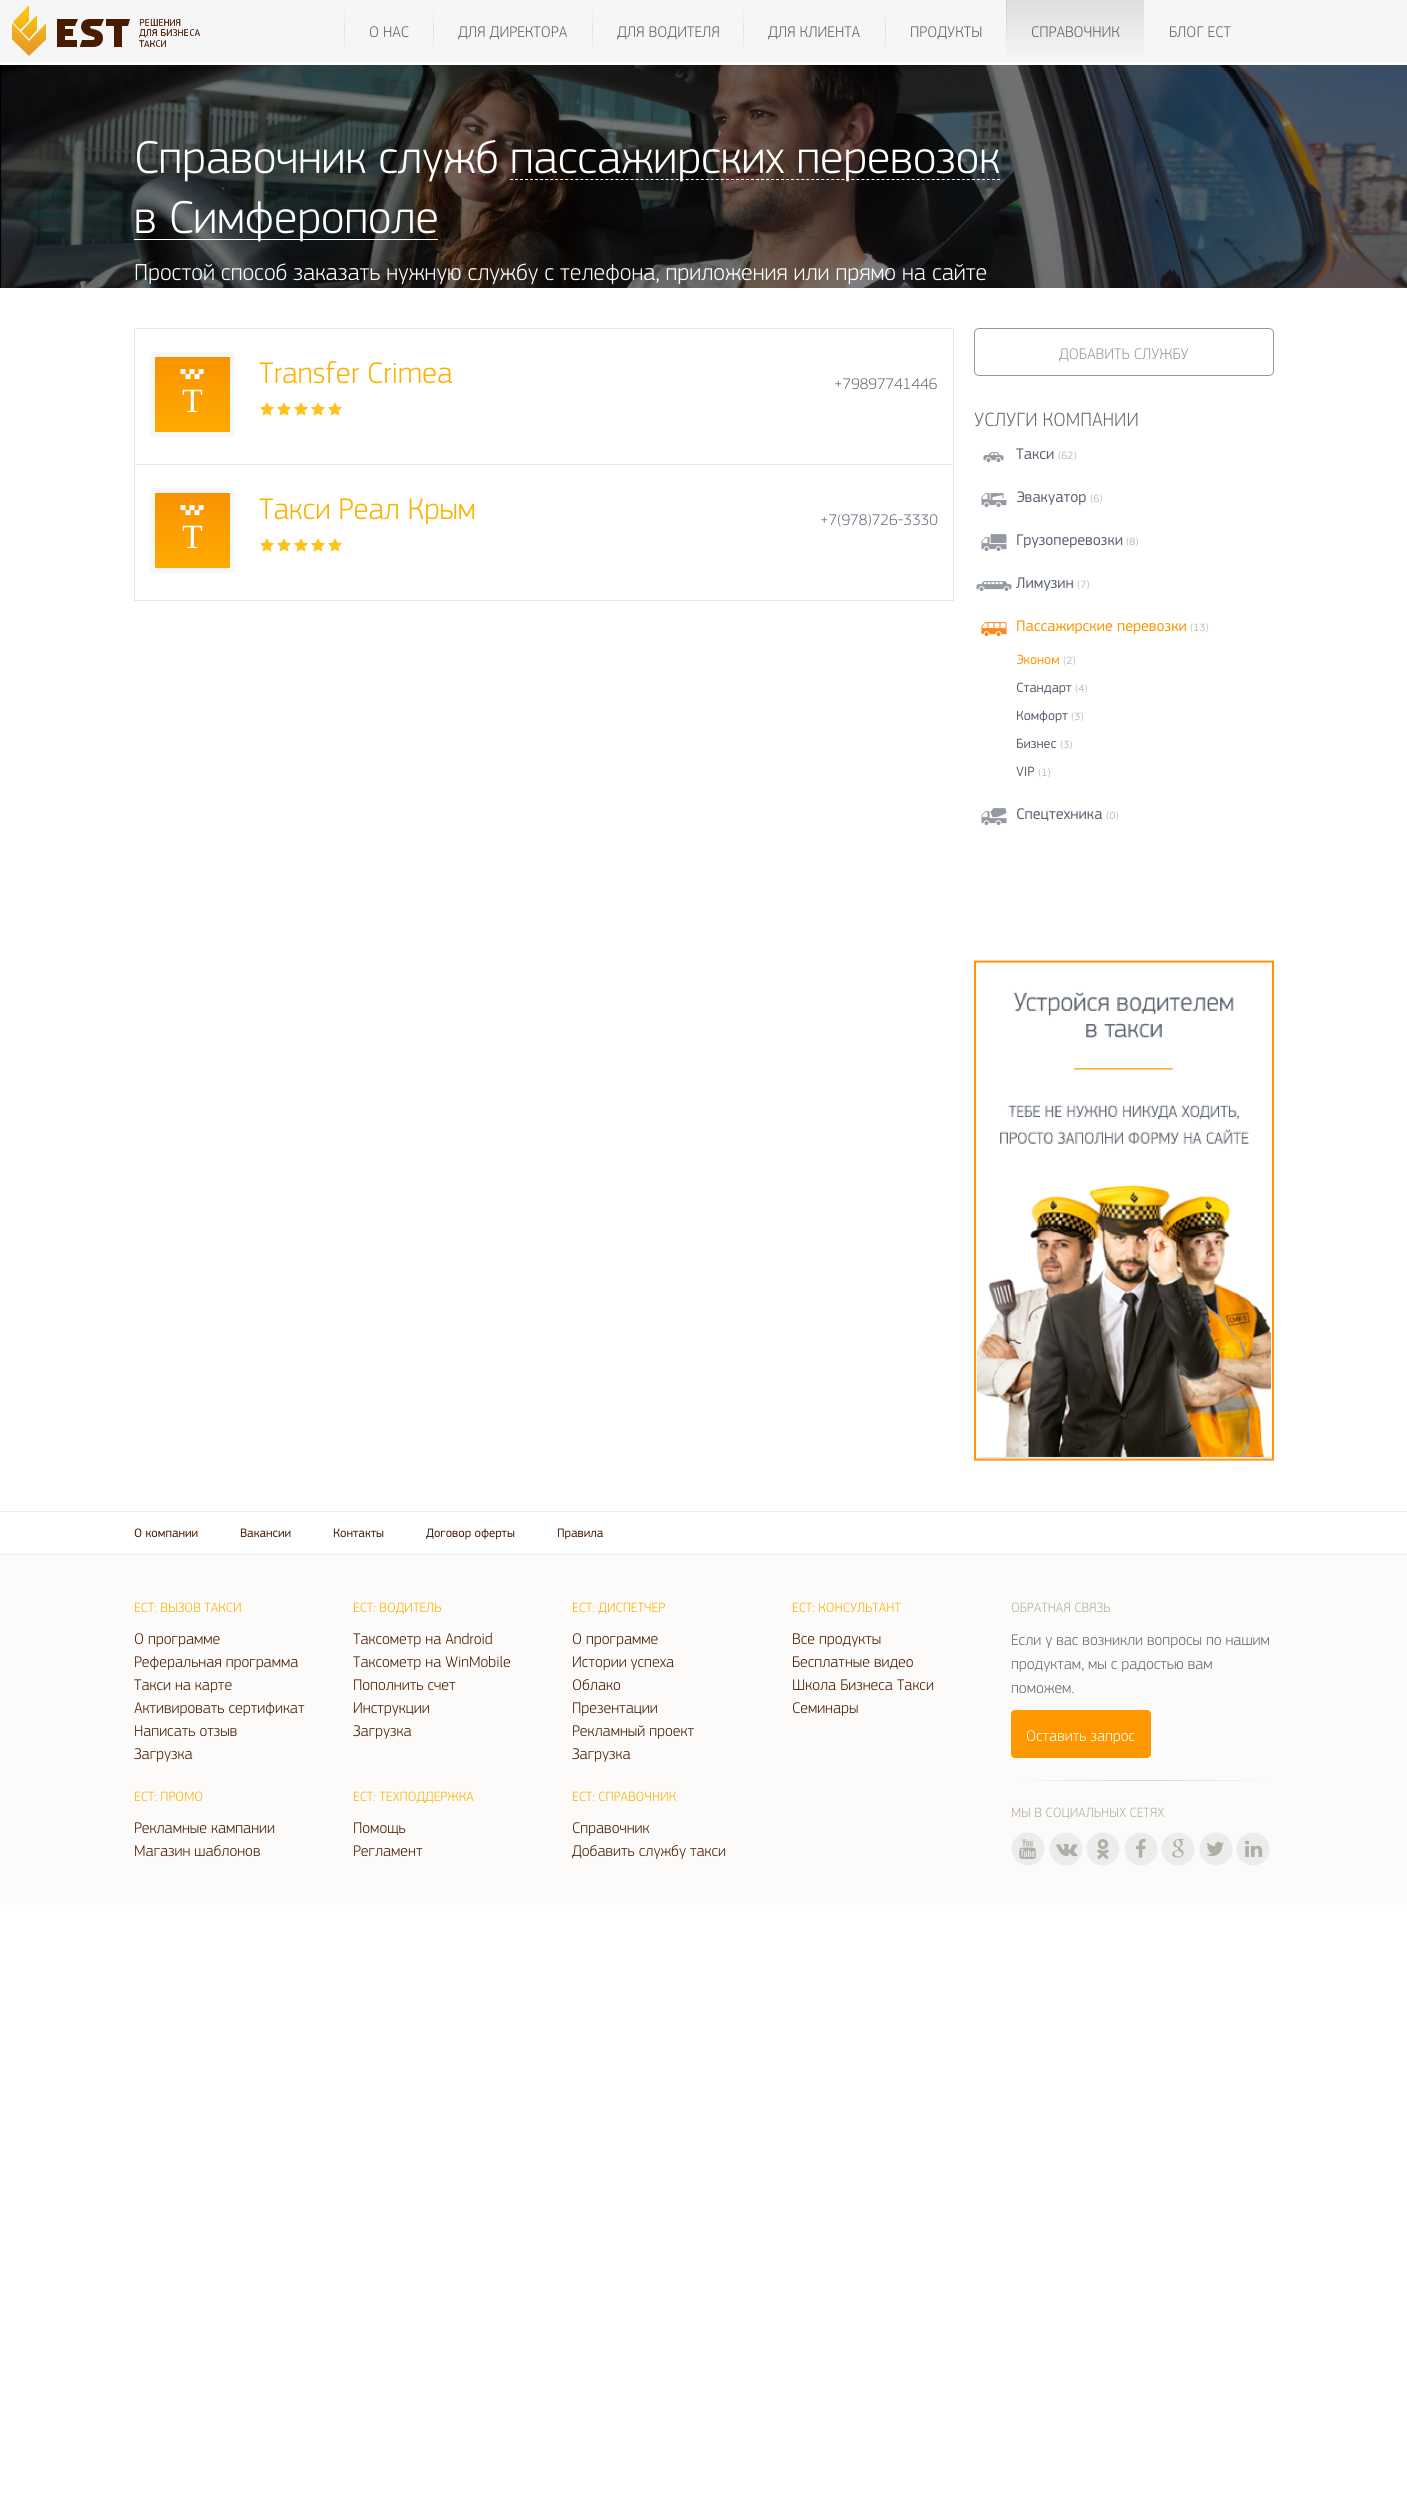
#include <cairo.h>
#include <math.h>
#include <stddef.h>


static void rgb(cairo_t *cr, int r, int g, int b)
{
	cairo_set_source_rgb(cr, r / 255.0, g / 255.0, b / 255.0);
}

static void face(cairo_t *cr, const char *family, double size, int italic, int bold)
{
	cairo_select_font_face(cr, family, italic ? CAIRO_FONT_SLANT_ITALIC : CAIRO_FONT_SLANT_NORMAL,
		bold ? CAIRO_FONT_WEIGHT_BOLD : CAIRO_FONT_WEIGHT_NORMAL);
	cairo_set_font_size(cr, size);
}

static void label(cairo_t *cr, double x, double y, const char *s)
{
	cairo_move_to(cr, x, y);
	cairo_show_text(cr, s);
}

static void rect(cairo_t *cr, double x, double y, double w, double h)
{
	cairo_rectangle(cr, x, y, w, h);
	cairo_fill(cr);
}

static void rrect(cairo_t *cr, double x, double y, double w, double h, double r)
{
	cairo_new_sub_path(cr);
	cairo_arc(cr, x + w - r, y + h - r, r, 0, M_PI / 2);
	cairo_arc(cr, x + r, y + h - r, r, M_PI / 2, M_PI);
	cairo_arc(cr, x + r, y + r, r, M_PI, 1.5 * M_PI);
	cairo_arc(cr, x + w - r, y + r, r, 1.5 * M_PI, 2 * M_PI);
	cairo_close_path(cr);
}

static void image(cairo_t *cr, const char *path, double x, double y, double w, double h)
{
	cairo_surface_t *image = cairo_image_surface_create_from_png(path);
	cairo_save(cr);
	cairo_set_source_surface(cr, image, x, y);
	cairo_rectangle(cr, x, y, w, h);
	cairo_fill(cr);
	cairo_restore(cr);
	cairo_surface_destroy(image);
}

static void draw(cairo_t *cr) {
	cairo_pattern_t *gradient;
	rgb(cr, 255, 255, 255);
	cairo_paint(cr);
	rgb(cr, 246, 246, 246);
	rect(cr, 0, 0, 1407, 62);
	image(cr, "image0.png", 12, 5, 188, 51);
	image(cr, "image1.png", 344, 11, 1, 41);
	face(cr, "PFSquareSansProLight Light", 16, 0, 0);
	rgb(cr, 90, 99, 112);
	label(cr, 369, 37, "О НАС");
	image(cr, "image1.png", 433, 11, 1, 41);
	label(cr, 458, 37, "ДЛЯ ДИРЕКТОРА");
	image(cr, "image1.png", 592, 11, 1, 41);
	label(cr, 617, 37, "ДЛЯ ВОДИТЕЛЯ");
	image(cr, "image1.png", 743, 11, 1, 41);
	label(cr, 768, 37, "ДЛЯ КЛИЕНТА");
	image(cr, "image1.png", 885, 11, 1, 41);
	label(cr, 910, 37, "ПРОДУКТЫ");
	gradient = cairo_pattern_create_linear(1076, 0, 1076, 62);
	cairo_pattern_add_color_stop_rgba(gradient, 0, 0.871, 0.871, 0.871, 1);
	cairo_pattern_add_color_stop_rgba(gradient, 1, 0.965, 0.965, 0.965, 1);
	cairo_set_source(cr, gradient);
	cairo_pattern_destroy(gradient);
	rect(cr, 1006, 0, 138, 56);
	image(cr, "image2.png", 1006, 0, 1, 46);
	rgb(cr, 90, 99, 112);
	label(cr, 1031, 37, "СПРАВОЧНИК");
	label(cr, 1169, 37, "БЛОГ ЕСТ");
	image(cr, "image3.png", 0, 65, 1407, 223);
	face(cr, "PFSquareSansProLight Light", 48, 0, 0);
	rgb(cr, 255, 255, 255);
	label(cr, 134, 173, "Справочник служб");
	cairo_new_path(cr);
	cairo_move_to(cr, 510, 179.5);
	cairo_line_to(cr, 1000, 179.5);
	cairo_set_line_width(cr, 1);
	cairo_set_dash(cr, (double[]){3, 2.02}, 2, 0);
	cairo_stroke(cr);
	label(cr, 510, 173, "пассажирских перевозок");
	rect(cr, 134, 239, 304, 1);
	label(cr, 134, 233, "в Симферополе");
	face(cr, "PFSquareSansProLight Light", 24, 0, 0);
	label(cr, 134, 280, "Простой способ заказать нужную службу с телефона, приложения или прямо на сайте");
	cairo_rectangle(cr, 134.5, 328.5, 819, 272);
	rgb(cr, 231, 232, 234);
	cairo_set_dash(cr, NULL, 0, 0);
	cairo_stroke(cr);
	face(cr, "PFSquareSansProLight Light", 31, 0, 0);
	rgb(cr, 252, 176, 0);
	label(cr, 259, 383, "Transfer Crimea");
	image(cr, "image4.png", 260, 402, 14, 14);
	image(cr, "image4.png", 277, 402, 14, 14);
	image(cr, "image4.png", 294, 402, 14, 14);
	image(cr, "image4.png", 311, 402, 14, 14);
	image(cr, "image4.png", 328, 402, 14, 14);
	face(cr, "PFSquareSansProLight Light", 16, 0, 0);
	rgb(cr, 103, 111, 122);
	label(cr, 834, 389, "+79897741446");
	rgb(cr, 247, 247, 247);
	rrect(cr, 150, 352, 85, 85, 5);
	cairo_fill(cr);
	gradient = cairo_pattern_create_linear(193, 432, 193, 357);
	cairo_pattern_add_color_stop_rgba(gradient, 0, 0.996, 0.667, 0, 1);
	cairo_pattern_add_color_stop_rgba(gradient, 1, 0.976, 0.576, 0, 1);
	cairo_set_source(cr, gradient);
	cairo_pattern_destroy(gradient);
	rect(cr, 155, 357, 75, 75);
	image(cr, "image5.png", 180, 369, 24, 11);
	face(cr, "Liberation Serif", 34, 0, 0);
	rgb(cr, 255, 255, 255);
	label(cr, 182, 412, "T");
	rgb(cr, 231, 232, 234);
	rect(cr, 135, 464, 818, 1);
	face(cr, "PFSquareSansProLight Light", 31, 0, 0);
	rgb(cr, 252, 176, 0);
	label(cr, 259, 519, "Такси Реал Крым");
	image(cr, "image4.png", 260, 538, 14, 14);
	image(cr, "image4.png", 277, 538, 14, 14);
	image(cr, "image4.png", 294, 538, 14, 14);
	image(cr, "image4.png", 311, 538, 14, 14);
	image(cr, "image4.png", 328, 538, 14, 14);
	face(cr, "PFSquareSansProLight Light", 16, 0, 0);
	rgb(cr, 103, 111, 122);
	label(cr, 820, 525, "+7(978)726-3330");
	rgb(cr, 247, 247, 247);
	rrect(cr, 150, 488, 85, 85, 5);
	cairo_fill(cr);
	gradient = cairo_pattern_create_linear(193, 568, 193, 493);
	cairo_pattern_add_color_stop_rgba(gradient, 0, 0.996, 0.667, 0, 1);
	cairo_pattern_add_color_stop_rgba(gradient, 1, 0.976, 0.576, 0, 1);
	cairo_set_source(cr, gradient);
	cairo_pattern_destroy(gradient);
	rect(cr, 155, 493, 75, 75);
	image(cr, "image5.png", 180, 505, 24, 11);
	face(cr, "Liberation Serif", 34, 0, 0);
	rgb(cr, 255, 255, 255);
	label(cr, 182, 548, "Т");
	rrect(cr, 974.5, 328.5, 299, 47, 4.5);
	rgb(cr, 149, 154, 162);
	cairo_stroke(cr);
	face(cr, "PFSquareSansProLight Light", 16, 0, 0);
	label(cr, 1059, 359, "ДОБАВИТЬ СЛУЖБУ");
	face(cr, "PFSquareSansProLight Light", 20, 0, 0);
	rgb(cr, 106, 106, 106);
	label(cr, 974, 426, "УСЛУГИ КОМПАНИИ");
	image(cr, "image6.png", 983, 452, 21, 11);
	face(cr, "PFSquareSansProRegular", 16, 0, 0);
	rgb(cr, 90, 99, 112);
	label(cr, 1016, 459, "Такси");
	face(cr, "PFSquareSansProRegular", 11, 0, 0);
	rgb(cr, 187, 187, 187);
	label(cr, 1058, 459, "(62)");
	image(cr, "image7.png", 981, 493, 26, 15);
	face(cr, "PFSquareSansProRegular", 16, 0, 0);
	rgb(cr, 90, 99, 112);
	label(cr, 1016, 502, "Эвакуатор");
	face(cr, "PFSquareSansProRegular", 11, 0, 0);
	rgb(cr, 187, 187, 187);
	label(cr, 1090, 502, "(6)");
	image(cr, "image8.png", 981, 534, 26, 18);
	face(cr, "PFSquareSansProRegular", 16, 0, 0);
	rgb(cr, 90, 99, 112);
	label(cr, 1016, 545, "Грузоперевозки");
	face(cr, "PFSquareSansProRegular", 11, 0, 0);
	rgb(cr, 187, 187, 187);
	label(cr, 1126, 545, "(8)");
	image(cr, "image9.png", 976, 581, 36, 11);
	face(cr, "PFSquareSansProRegular", 16, 0, 0);
	rgb(cr, 90, 99, 112);
	label(cr, 1016, 588, "Лимузин");
	face(cr, "PFSquareSansProRegular", 11, 0, 0);
	rgb(cr, 187, 187, 187);
	label(cr, 1077, 588, "(7)");
	image(cr, "image10.png", 981, 622, 26, 15);
	face(cr, "PFSquareSansProRegular", 16, 0, 0);
	rgb(cr, 255, 150, 0);
	label(cr, 1016, 631, "Пассажирские перевозки");
	face(cr, "PFSquareSansProRegular", 11, 0, 0);
	rgb(cr, 187, 187, 187);
	label(cr, 1190, 631, "(13)");
	face(cr, "PFSquareSansProRegular", 14, 0, 0);
	rgb(cr, 255, 150, 0);
	label(cr, 1016, 664, "Эконом");
	face(cr, "PFSquareSansProRegular", 11, 0, 0);
	rgb(cr, 187, 187, 187);
	label(cr, 1063, 664, "(2)");
	face(cr, "PFSquareSansProRegular", 14, 0, 0);
	rgb(cr, 90, 99, 112);
	label(cr, 1016, 692, "Стандарт");
	face(cr, "PFSquareSansProRegular", 11, 0, 0);
	rgb(cr, 187, 187, 187);
	label(cr, 1075, 692, "(4)");
	face(cr, "PFSquareSansProRegular", 14, 0, 0);
	rgb(cr, 90, 99, 112);
	label(cr, 1016, 720, "Комфорт");
	face(cr, "PFSquareSansProRegular", 11, 0, 0);
	rgb(cr, 187, 187, 187);
	label(cr, 1071, 720, "(3)");
	face(cr, "PFSquareSansProRegular", 14, 0, 0);
	rgb(cr, 90, 99, 112);
	label(cr, 1016, 748, "Бизнес");
	face(cr, "PFSquareSansProRegular", 11, 0, 0);
	rgb(cr, 187, 187, 187);
	label(cr, 1060, 748, "(3)");
	face(cr, "PFSquareSansProRegular", 14, 0, 0);
	rgb(cr, 90, 99, 112);
	label(cr, 1016, 776, "VIP");
	face(cr, "PFSquareSansProRegular", 11, 0, 0);
	rgb(cr, 187, 187, 187);
	label(cr, 1038, 776, "(1)");
	image(cr, "image11.png", 981, 808, 26, 18);
	face(cr, "PFSquareSansProRegular", 16, 0, 0);
	rgb(cr, 90, 99, 112);
	label(cr, 1016, 819, "Спецтехника");
	face(cr, "PFSquareSansProRegular", 11, 0, 0);
	rgb(cr, 187, 187, 187);
	label(cr, 1106, 819, "(0)");
	image(cr, "image12.png", 974, 960, 300, 501);
	rgb(cr, 238, 238, 238);
	rect(cr, 0, 1511, 1407, 1);
	face(cr, "PFSquareSansProRegular", 12.75, 0, 0);
	rgb(cr, 73, 28, 0);
	label(cr, 134, 1537, "О компании");
	label(cr, 240, 1537, "Вакансии");
	label(cr, 333, 1537, "Контакты");
	label(cr, 426, 1537, "Договор оферты");
	label(cr, 557, 1537, "Правила");
	rgb(cr, 252, 251, 250);
	rect(cr, 0, 1555, 1407, 350);
	rgb(cr, 238, 238, 238);
	rect(cr, 0, 1554, 1407, 1);
	face(cr, "PFSquareSansProLight Light", 14, 0, 0);
	rgb(cr, 252, 176, 0);
	label(cr, 134, 1612, "ЕСТ: ВЫЗОВ ТАКСИ");
	face(cr, "PFSquareSansProLight Light", 16, 0, 0);
	rgb(cr, 73, 28, 0);
	label(cr, 134, 1644, "О программе");
	label(cr, 134, 1667, "Реферальная программа");
	label(cr, 134, 1690, "Такси на карте");
	label(cr, 134, 1713, "Активировать сертификат");
	label(cr, 134, 1736, "Написать отзыв");
	label(cr, 134, 1759, "Загрузка");
	face(cr, "PFSquareSansProLight Light", 14, 0, 0);
	rgb(cr, 252, 176, 0);
	label(cr, 353, 1612, "ЕСТ: ВОДИТЕЛЬ");
	face(cr, "PFSquareSansProLight Light", 16, 0, 0);
	rgb(cr, 73, 28, 0);
	label(cr, 353, 1644, "Таксометр на Android");
	label(cr, 353, 1667, "Таксометр на WinMobile");
	label(cr, 353, 1690, "Пополнить счет");
	label(cr, 353, 1713, "Инструкции");
	label(cr, 353, 1736, "Загрузка");
	face(cr, "PFSquareSansProLight Light", 14, 0, 0);
	rgb(cr, 252, 176, 0);
	label(cr, 572, 1612, "ЕСТ: ДИСПЕТЧЕР");
	face(cr, "PFSquareSansProLight Light", 16, 0, 0);
	rgb(cr, 73, 28, 0);
	label(cr, 572, 1644, "О программе");
	label(cr, 572, 1667, "Истории успеха");
	label(cr, 572, 1690, "Облако");
	label(cr, 572, 1713, "Презентации");
	label(cr, 572, 1736, "Рекламный проект");
	label(cr, 572, 1759, "Загрузка");
	face(cr, "PFSquareSansProLight Light", 14, 0, 0);
	rgb(cr, 252, 176, 0);
	label(cr, 792, 1612, "ЕСТ: КОНСУЛЬТАНТ");
	face(cr, "PFSquareSansProLight Light", 16, 0, 0);
	rgb(cr, 73, 28, 0);
	label(cr, 792, 1644, "Все продукты");
	label(cr, 792, 1667, "Бесплатные видео");
	label(cr, 792, 1690, "Школа Бизнеса Такси");
	label(cr, 792, 1713, "Семинары");
	face(cr, "PFSquareSansProLight Light", 14, 0, 0);
	rgb(cr, 252, 176, 0);
	label(cr, 134, 1801, "ЕСТ: ПРОМО");
	face(cr, "PFSquareSansProLight Light", 16, 0, 0);
	rgb(cr, 73, 28, 0);
	label(cr, 134, 1833, "Рекламные кампании");
	label(cr, 134, 1856, "Магазин шаблонов");
	face(cr, "PFSquareSansProLight Light", 14, 0, 0);
	rgb(cr, 252, 176, 0);
	label(cr, 353, 1801, "ЕСТ: ТЕХПОДДЕРЖКА");
	face(cr, "PFSquareSansProLight Light", 16, 0, 0);
	rgb(cr, 73, 28, 0);
	label(cr, 353, 1833, "Помощь");
	label(cr, 353, 1856, "Регламент");
	face(cr, "PFSquareSansProLight Light", 14, 0, 0);
	rgb(cr, 252, 176, 0);
	label(cr, 572, 1801, "ЕСТ: СПРАВОЧНИК");
	face(cr, "PFSquareSansProLight Light", 16, 0, 0);
	rgb(cr, 73, 28, 0);
	label(cr, 572, 1833, "Справочник");
	label(cr, 572, 1856, "Добавить службу такси");
	face(cr, "PFSquareSansProLight Light", 14, 0, 0);
	rgb(cr, 176, 174, 166);
	label(cr, 1011, 1612, "ОБРАТНАЯ СВЯЗЬ");
	face(cr, "PFSquareSansProLight Light", 16, 0, 0);
	rgb(cr, 106, 106, 106);
	label(cr, 1011, 1645, "Если у вас возникли вопросы по нашим");
	label(cr, 1011, 1669, "продуктам, мы с радостью вам");
	label(cr, 1011, 1693, "поможем.");
	rgb(cr, 255, 152, 0);
	rrect(cr, 1011.5, 1710.5, 139, 47, 3.5);
	cairo_fill_preserve(cr);
	cairo_stroke(cr);
	rgb(cr, 255, 255, 255);
	label(cr, 1026, 1741, "Оставить запрос");
	gradient = cairo_pattern_create_linear(1011, 1781, 1274, 1781);
	cairo_pattern_add_color_stop_rgba(gradient, 0, 0.988, 0.984, 0.98, 1);
	cairo_pattern_add_color_stop_rgba(gradient, 0.5, 0.839, 0.835, 0.835, 1);
	cairo_pattern_add_color_stop_rgba(gradient, 1, 0.988, 0.984, 0.98, 1);
	cairo_set_source(cr, gradient);
	cairo_pattern_destroy(gradient);
	rect(cr, 1020, 1780, 245, 1);
	face(cr, "PFSquareSansProLight Light", 14, 0, 0);
	rgb(cr, 176, 174, 166);
	label(cr, 1011, 1817, "МЫ В СОЦИАЛЬНЫХ СЕТЯХ");
	rgb(cr, 236, 236, 236);
	cairo_new_path(cr);
	cairo_arc(cr, 1028, 1849, 16.5, 0, 2 * M_PI);
	cairo_fill(cr);
	image(cr, "image13.png", 1019, 1839, 17, 20);
	cairo_arc(cr, 1066, 1849, 16.5, 0, 2 * M_PI);
	cairo_fill(cr);
	image(cr, "image14.png", 1056, 1843, 22, 14);
	cairo_arc(cr, 1103, 1849, 16.5, 0, 2 * M_PI);
	cairo_fill(cr);
	image(cr, "image15.png", 1097, 1839, 12, 20);
	cairo_arc(cr, 1141, 1849, 16.5, 0, 2 * M_PI);
	cairo_fill(cr);
	image(cr, "image16.png", 1136, 1839, 10, 19);
	cairo_arc(cr, 1178, 1849, 16.5, 0, 2 * M_PI);
	cairo_fill(cr);
	image(cr, "image17.png", 1172, 1839, 12, 19);
	cairo_arc(cr, 1216, 1849, 16.5, 0, 2 * M_PI);
	cairo_fill(cr);
	image(cr, "image18.png", 1206, 1841, 18, 16);
	cairo_arc(cr, 1253, 1849, 16.5, 0, 2 * M_PI);
	cairo_fill(cr);
	image(cr, "image19.png", 1245, 1840, 18, 18);
}

int main(void) {
	cairo_surface_t *surface = cairo_image_surface_create(CAIRO_FORMAT_RGB24, 1407, 2514);
	cairo_t *cr = cairo_create(surface);
	cairo_font_options_t *options = cairo_font_options_create();
	cairo_font_options_set_hint_metrics(options, CAIRO_HINT_METRICS_OFF);
	cairo_font_options_set_hint_style(options, CAIRO_HINT_STYLE_NONE);
	cairo_set_font_options(cr, options);
	cairo_set_miter_limit(cr, 4);
	draw(cr);
	cairo_surface_write_to_png(surface, "render.png");
	cairo_font_options_destroy(options);
	cairo_destroy(cr);
	cairo_surface_destroy(surface);
	return 0;
}
